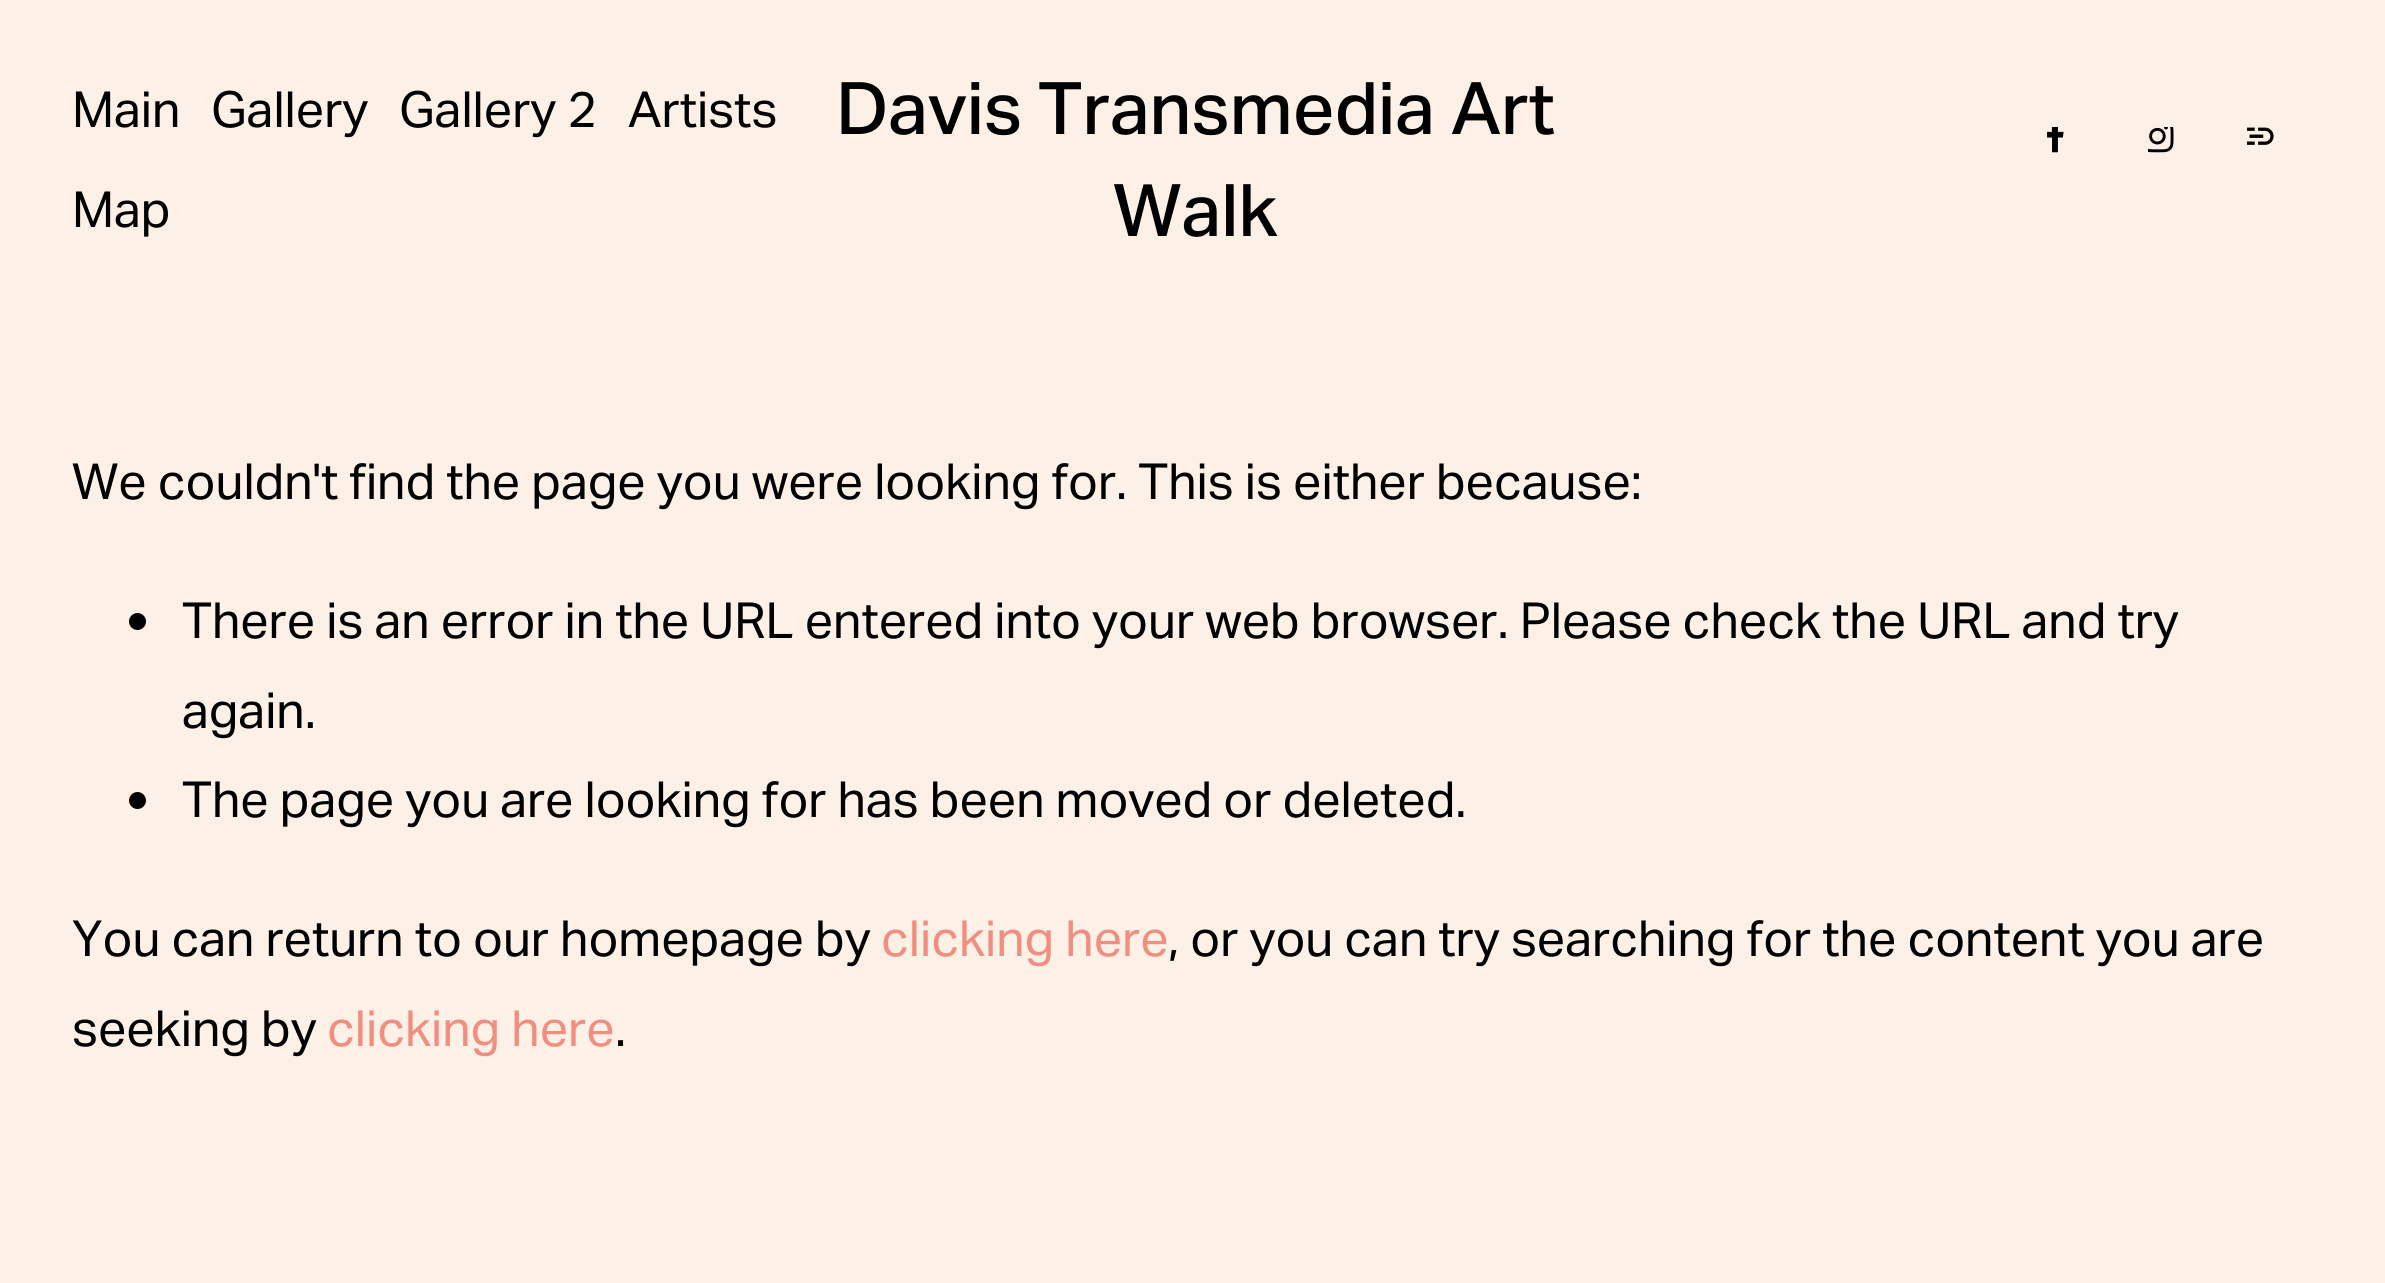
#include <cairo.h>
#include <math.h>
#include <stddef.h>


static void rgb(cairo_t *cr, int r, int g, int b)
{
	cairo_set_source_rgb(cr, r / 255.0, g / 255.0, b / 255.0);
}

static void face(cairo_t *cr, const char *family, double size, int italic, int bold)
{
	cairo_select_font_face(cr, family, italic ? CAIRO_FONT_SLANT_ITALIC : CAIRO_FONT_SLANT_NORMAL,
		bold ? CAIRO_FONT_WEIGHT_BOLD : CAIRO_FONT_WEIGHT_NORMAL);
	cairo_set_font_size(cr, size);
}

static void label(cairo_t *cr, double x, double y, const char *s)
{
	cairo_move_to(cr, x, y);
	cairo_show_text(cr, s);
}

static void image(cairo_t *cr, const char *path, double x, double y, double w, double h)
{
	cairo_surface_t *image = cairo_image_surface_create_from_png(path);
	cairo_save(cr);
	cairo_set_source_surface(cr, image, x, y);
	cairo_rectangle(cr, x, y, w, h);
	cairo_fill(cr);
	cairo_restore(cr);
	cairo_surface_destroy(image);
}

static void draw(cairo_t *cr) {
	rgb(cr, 253, 240, 230);
	cairo_paint(cr);
	face(cr, "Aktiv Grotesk", 49.75, 0, 0);
	rgb(cr, 0, 0, 0);
	label(cr, 72, 127, "Main");
	label(cr, 211, 127, "Gallery");
	label(cr, 399, 127, "Gallery 2");
	label(cr, 628, 127, "Artists");
	label(cr, 72, 227, "Map");
	face(cr, "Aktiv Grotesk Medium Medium", 72.6, 0, 0);
	label(cr, 836, 134, "Davis Transmedia Art");
	label(cr, 1113, 236, "Walk");
	image(cr, "image0.png", 2047, 127, 17, 26);
	image(cr, "image1.png", 2148, 127, 26, 26);
	image(cr, "image2.png", 2247, 127, 27, 18);
	face(cr, "Aktiv Grotesk", 49.75, 0, 0);
	label(cr, 72, 499, "We couldn't find the page you were looking for. This is either because:");
	cairo_new_path(cr);
	cairo_arc(cr, 137.5, 621.5, 8.5, 0, 2 * M_PI);
	cairo_fill(cr);
	label(cr, 182, 638, "There is an error in the URL entered into your web browser. Please check the URL and try");
	label(cr, 182, 728, "again.");
	cairo_new_path(cr);
	cairo_arc(cr, 137.5, 800.5, 8.5, 0, 2 * M_PI);
	cairo_fill(cr);
	label(cr, 182, 817, "The page you are looking for has been moved or deleted.");
	label(cr, 72, 956, "You can return to our homepage by");
	rgb(cr, 240, 142, 128);
	label(cr, 881, 956, "clicking here");
	rgb(cr, 0, 0, 0);
	label(cr, 1168, 956, ", or you can try searching for the content you are");
	label(cr, 72, 1046, "seeking by");
	rgb(cr, 240, 142, 128);
	label(cr, 327, 1046, "clicking here");
	rgb(cr, 0, 0, 0);
	label(cr, 615, 1046, ".");
}

int main(void) {
	cairo_surface_t *surface = cairo_image_surface_create(CAIRO_FORMAT_RGB24, 2385, 1283);
	cairo_t *cr = cairo_create(surface);
	cairo_font_options_t *options = cairo_font_options_create();
	cairo_font_options_set_hint_metrics(options, CAIRO_HINT_METRICS_OFF);
	cairo_font_options_set_hint_style(options, CAIRO_HINT_STYLE_NONE);
	cairo_set_font_options(cr, options);
	cairo_set_miter_limit(cr, 4);
	draw(cr);
	cairo_surface_write_to_png(surface, "render.png");
	cairo_font_options_destroy(options);
	cairo_destroy(cr);
	cairo_surface_destroy(surface);
	return 0;
}
